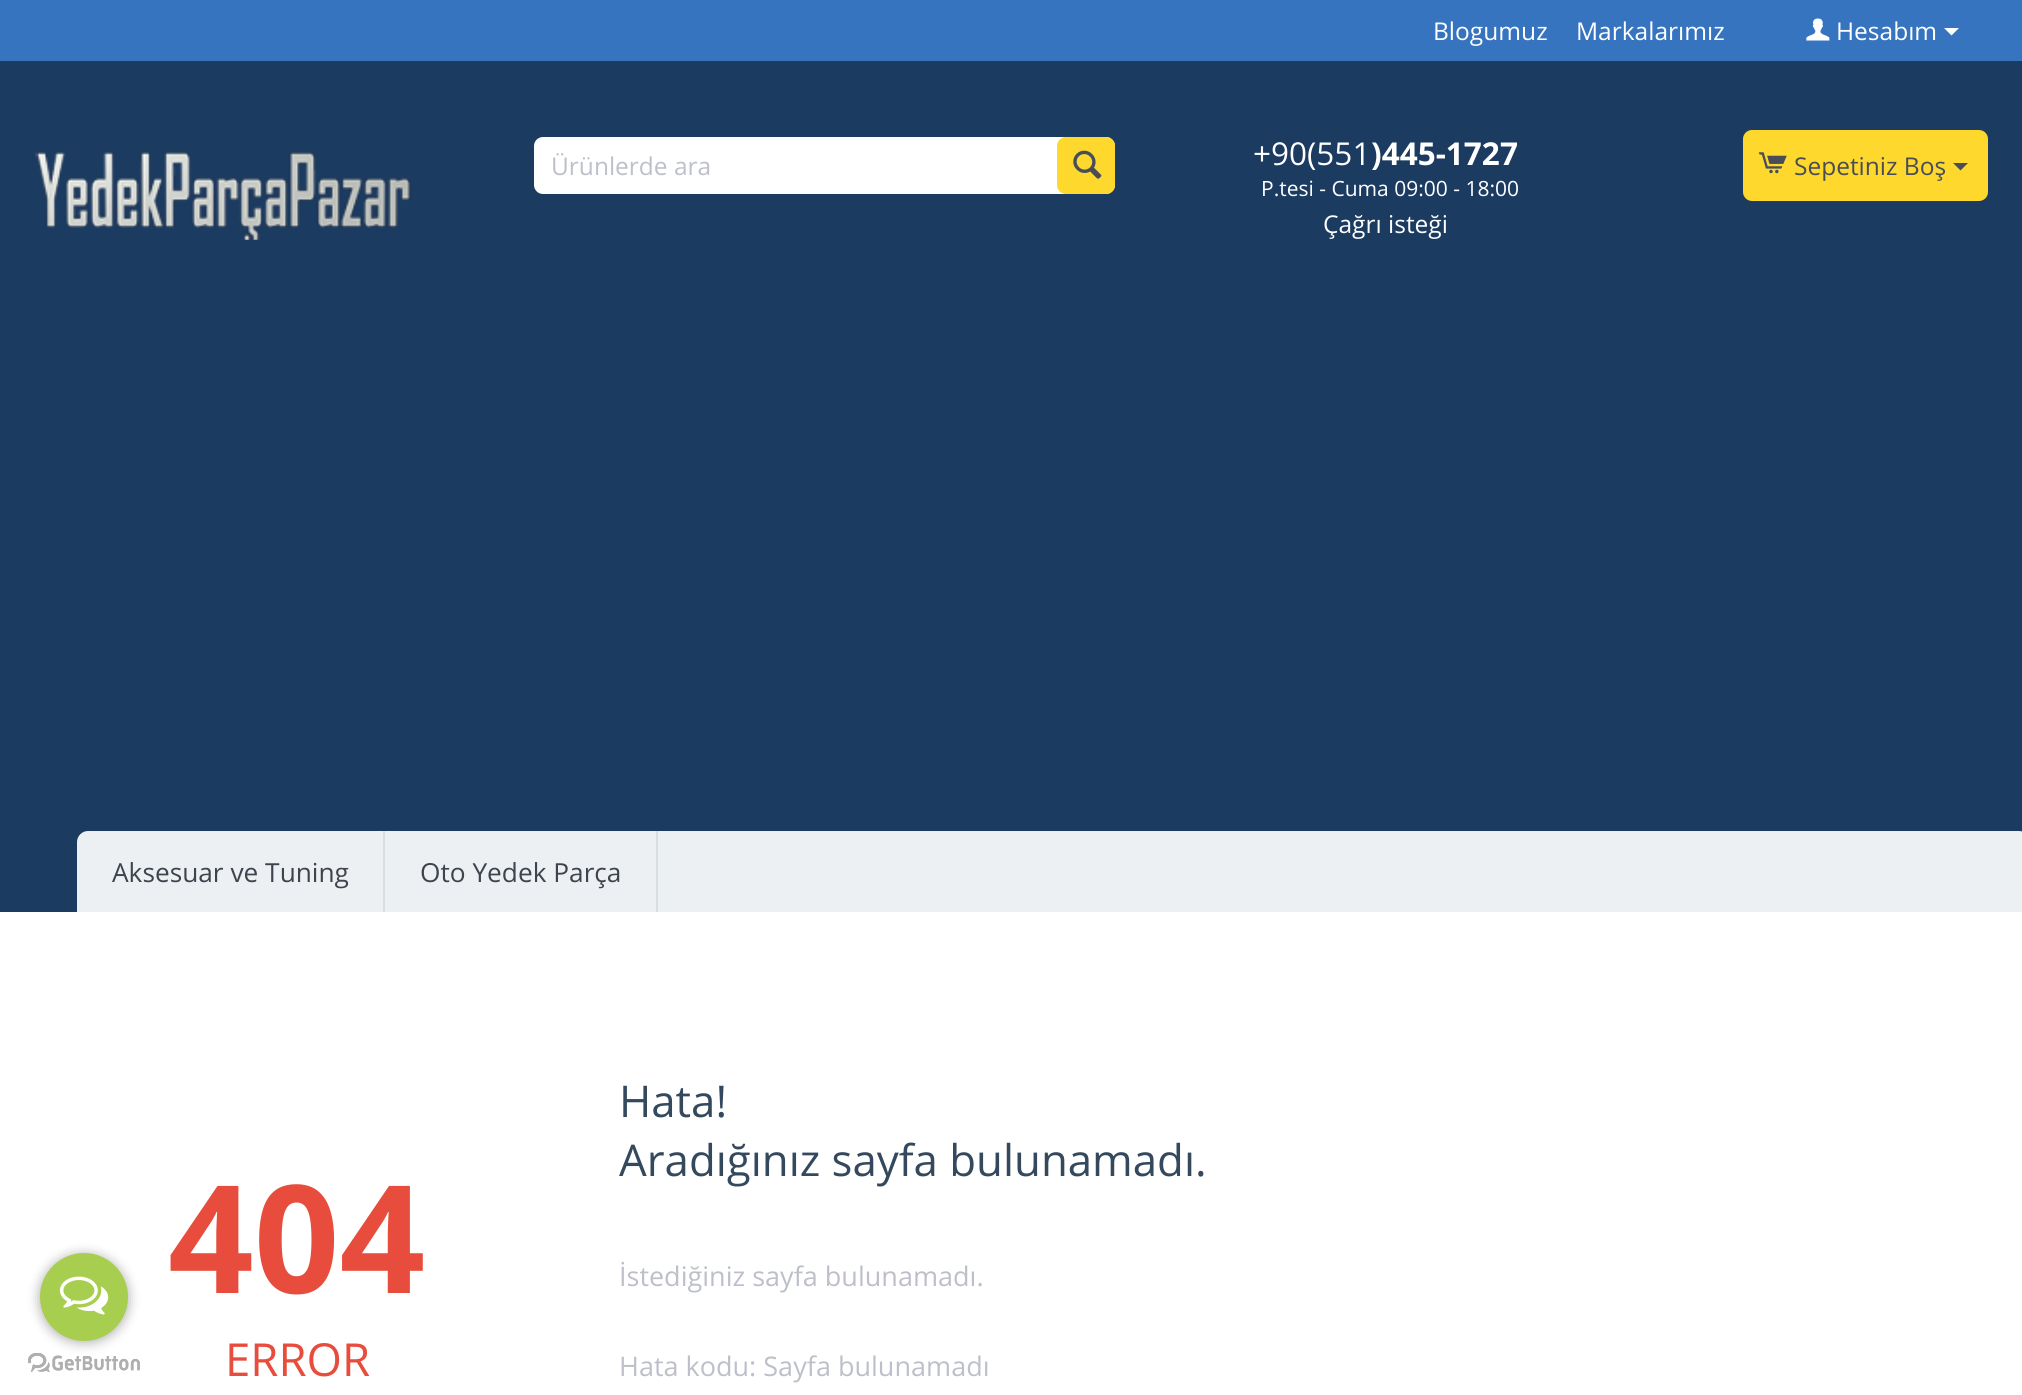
#include <cairo.h>
#include <math.h>
#include <stddef.h>


static void rgb(cairo_t *cr, int r, int g, int b)
{
	cairo_set_source_rgb(cr, r / 255.0, g / 255.0, b / 255.0);
}

static void face(cairo_t *cr, const char *family, double size, int italic, int bold)
{
	cairo_select_font_face(cr, family, italic ? CAIRO_FONT_SLANT_ITALIC : CAIRO_FONT_SLANT_NORMAL,
		bold ? CAIRO_FONT_WEIGHT_BOLD : CAIRO_FONT_WEIGHT_NORMAL);
	cairo_set_font_size(cr, size);
}

static void label(cairo_t *cr, double x, double y, const char *s)
{
	cairo_move_to(cr, x, y);
	cairo_show_text(cr, s);
}

static void rect(cairo_t *cr, double x, double y, double w, double h)
{
	cairo_rectangle(cr, x, y, w, h);
	cairo_fill(cr);
}

static void rrect(cairo_t *cr, double x, double y, double w, double h, double r)
{
	cairo_new_sub_path(cr);
	cairo_arc(cr, x + w - r, y + h - r, r, 0, M_PI / 2);
	cairo_arc(cr, x + r, y + h - r, r, M_PI / 2, M_PI);
	cairo_arc(cr, x + r, y + r, r, M_PI, 1.5 * M_PI);
	cairo_arc(cr, x + w - r, y + r, r, 1.5 * M_PI, 2 * M_PI);
	cairo_close_path(cr);
}

static void soft_shadow(cairo_t *cr, double x, double y, double w, double h, double r, double blur, double alpha)
{
	cairo_push_group_with_content(cr, CAIRO_CONTENT_ALPHA);
	cairo_set_operator(cr, CAIRO_OPERATOR_SOURCE);
	for (int i = 15; i >= -15 && fmin(w, h) + blur * i / 3 > 0; i -= 2) {
		double e = blur * i / 6;
		cairo_set_source_rgba(cr, 0, 0, 0, alpha * erfc((i - 1) / 8.5) / 2);
		rrect(cr, x - e, y - e, w + 2 * e, h + 2 * e, fmax(0, fmin(r + e + blur * .6, fmin(w, h) / 2 + e)));
		cairo_fill(cr);
	}
	cairo_pattern_t *soft = cairo_pop_group(cr);
	cairo_mask(cr, soft);
	cairo_pattern_destroy(soft);
}

static void image(cairo_t *cr, const char *path, double x, double y, double w, double h)
{
	cairo_surface_t *image = cairo_image_surface_create_from_png(path);
	cairo_save(cr);
	cairo_set_source_surface(cr, image, x, y);
	cairo_rectangle(cr, x, y, w, h);
	cairo_fill(cr);
	cairo_restore(cr);
	cairo_surface_destroy(image);
}

static void draw(cairo_t *cr) {
	rgb(cr, 255, 255, 255);
	cairo_paint(cr);
	image(cr, "image0.png", 28, 1353, 112, 19);
	rgb(cr, 136, 136, 136);
	soft_shadow(cr, 40, 1255, 88, 87, 43.5, 6, 0.4);
	rgb(cr, 54, 116, 191);
	rect(cr, 0, 0, 2022, 61);
	face(cr, "Open Sans", 24.5, 0, 0);
	rgb(cr, 255, 255, 255);
	label(cr, 1433, 40, "Blogumuz");
	label(cr, 1576, 40, "Markalarımız");
	image(cr, "image1.png", 1806, 18, 24, 23);
	label(cr, 1836, 40, "Hesabım");
	cairo_new_path(cr);
	cairo_move_to(cr, 1951.5, 35.5);
	cairo_line_to(cr, 1944, 28);
	cairo_line_to(cr, 1959, 28);
	cairo_close_path(cr);
	cairo_fill(cr);
	rgb(cr, 27, 59, 97);
	rect(cr, 0, 61, 2022, 851);
	image(cr, "image2.png", 35, 152, 377, 88);
	rgb(cr, 255, 255, 255);
	rrect(cr, 534, 137, 581, 57, 9);
	cairo_fill(cr);
	rgb(cr, 189, 192, 201);
	label(cr, 551, 175, "Ürünlerde ara");
	rgb(cr, 255, 216, 45);
	rrect(cr, 1057, 137, 58, 57, 9);
	cairo_fill(cr);
	image(cr, "image3.png", 1073, 150, 29, 29);
	face(cr, "Open Sans", 31.5, 0, 0);
	rgb(cr, 255, 255, 255);
	label(cr, 1253, 165, "+90(551");
	face(cr, "Open Sans", 31.5, 0, 1);
	label(cr, 1371, 165, ")445-1727");
	face(cr, "Open Sans", 21, 0, 0);
	label(cr, 1261, 196, "P.tesi - Cuma 09:00 - 18:00");
	face(cr, "Open Sans", 24.5, 0, 0);
	label(cr, 1323, 233, "Çağrı isteği");
	rgb(cr, 255, 216, 45);
	rrect(cr, 1743, 130, 245, 71, 9);
	cairo_fill(cr);
	image(cr, "image4.png", 1758, 152, 29, 22);
	rgb(cr, 72, 77, 88);
	label(cr, 1794, 175, "Sepetiniz Boş");
	cairo_new_path(cr);
	cairo_move_to(cr, 1960.5, 170.5);
	cairo_line_to(cr, 1953, 163);
	cairo_line_to(cr, 1968, 163);
	cairo_close_path(cr);
	cairo_fill(cr);
	rgb(cr, 237, 240, 242);
	cairo_new_path(cr);
	cairo_move_to(cr, 88, 831);
	cairo_line_to(cr, 2019, 831);
	cairo_curve_to(cr, 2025, 831, 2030, 836, 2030, 842);
	cairo_line_to(cr, 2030, 912);
	cairo_line_to(cr, 77, 912);
	cairo_line_to(cr, 77, 842);
	cairo_curve_to(cr, 77, 836, 82, 831, 88, 831);
	cairo_close_path(cr);
	cairo_fill(cr);
	rgb(cr, 216, 223, 227);
	rect(cr, 383, 831, 2, 81);
	face(cr, "Open Sans", 26.25, 0, 0);
	rgb(cr, 63, 67, 77);
	label(cr, 112, 882, "Aksesuar ve Tuning");
	rgb(cr, 216, 223, 227);
	rect(cr, 656, 831, 2, 81);
	rgb(cr, 63, 67, 77);
	label(cr, 420, 882, "Oto Yedek Parça");
	face(cr, "Open Sans", 150, 0, 1);
	rgb(cr, 231, 76, 60);
	label(cr, 168, 1293, "404");
	face(cr, "Open Sans", 45.5, 0, 0);
	label(cr, 225, 1376, "ERROR");
	face(cr, "Open Sans", 43.75, 0, 0);
	rgb(cr, 52, 73, 94);
	label(cr, 619, 1117, "Hata!");
	label(cr, 619, 1176, "Aradığınız sayfa bulunamadı.");
	face(cr, "Open Sans", 27, 0, 0);
	rgb(cr, 189, 192, 201);
	label(cr, 619, 1286, "İstediğiniz sayfa bulunamadı.");
	label(cr, 619, 1376, "Hata kodu: Sayfa bulunamadı");
	image(cr, "image6.png", 28, 1353, 112, 19);
	rgb(cr, 136, 136, 136);
	soft_shadow(cr, 40, 1255, 88, 87, 43.5, 6, 0.4);
	rgb(cr, 168, 206, 80);
	cairo_arc(cr, 84, 1297, 44, 0, 2 * M_PI);
	cairo_fill(cr);
	image(cr, "image5.png", 59, 1276, 50, 39);
}

int main(void) {
	cairo_surface_t *surface = cairo_image_surface_create(CAIRO_FORMAT_RGB24, 2022, 1395);
	cairo_t *cr = cairo_create(surface);
	cairo_font_options_t *options = cairo_font_options_create();
	cairo_font_options_set_hint_metrics(options, CAIRO_HINT_METRICS_OFF);
	cairo_font_options_set_hint_style(options, CAIRO_HINT_STYLE_NONE);
	cairo_set_font_options(cr, options);
	cairo_set_miter_limit(cr, 4);
	draw(cr);
	cairo_surface_write_to_png(surface, "render.png");
	cairo_font_options_destroy(options);
	cairo_destroy(cr);
	cairo_surface_destroy(surface);
	return 0;
}
